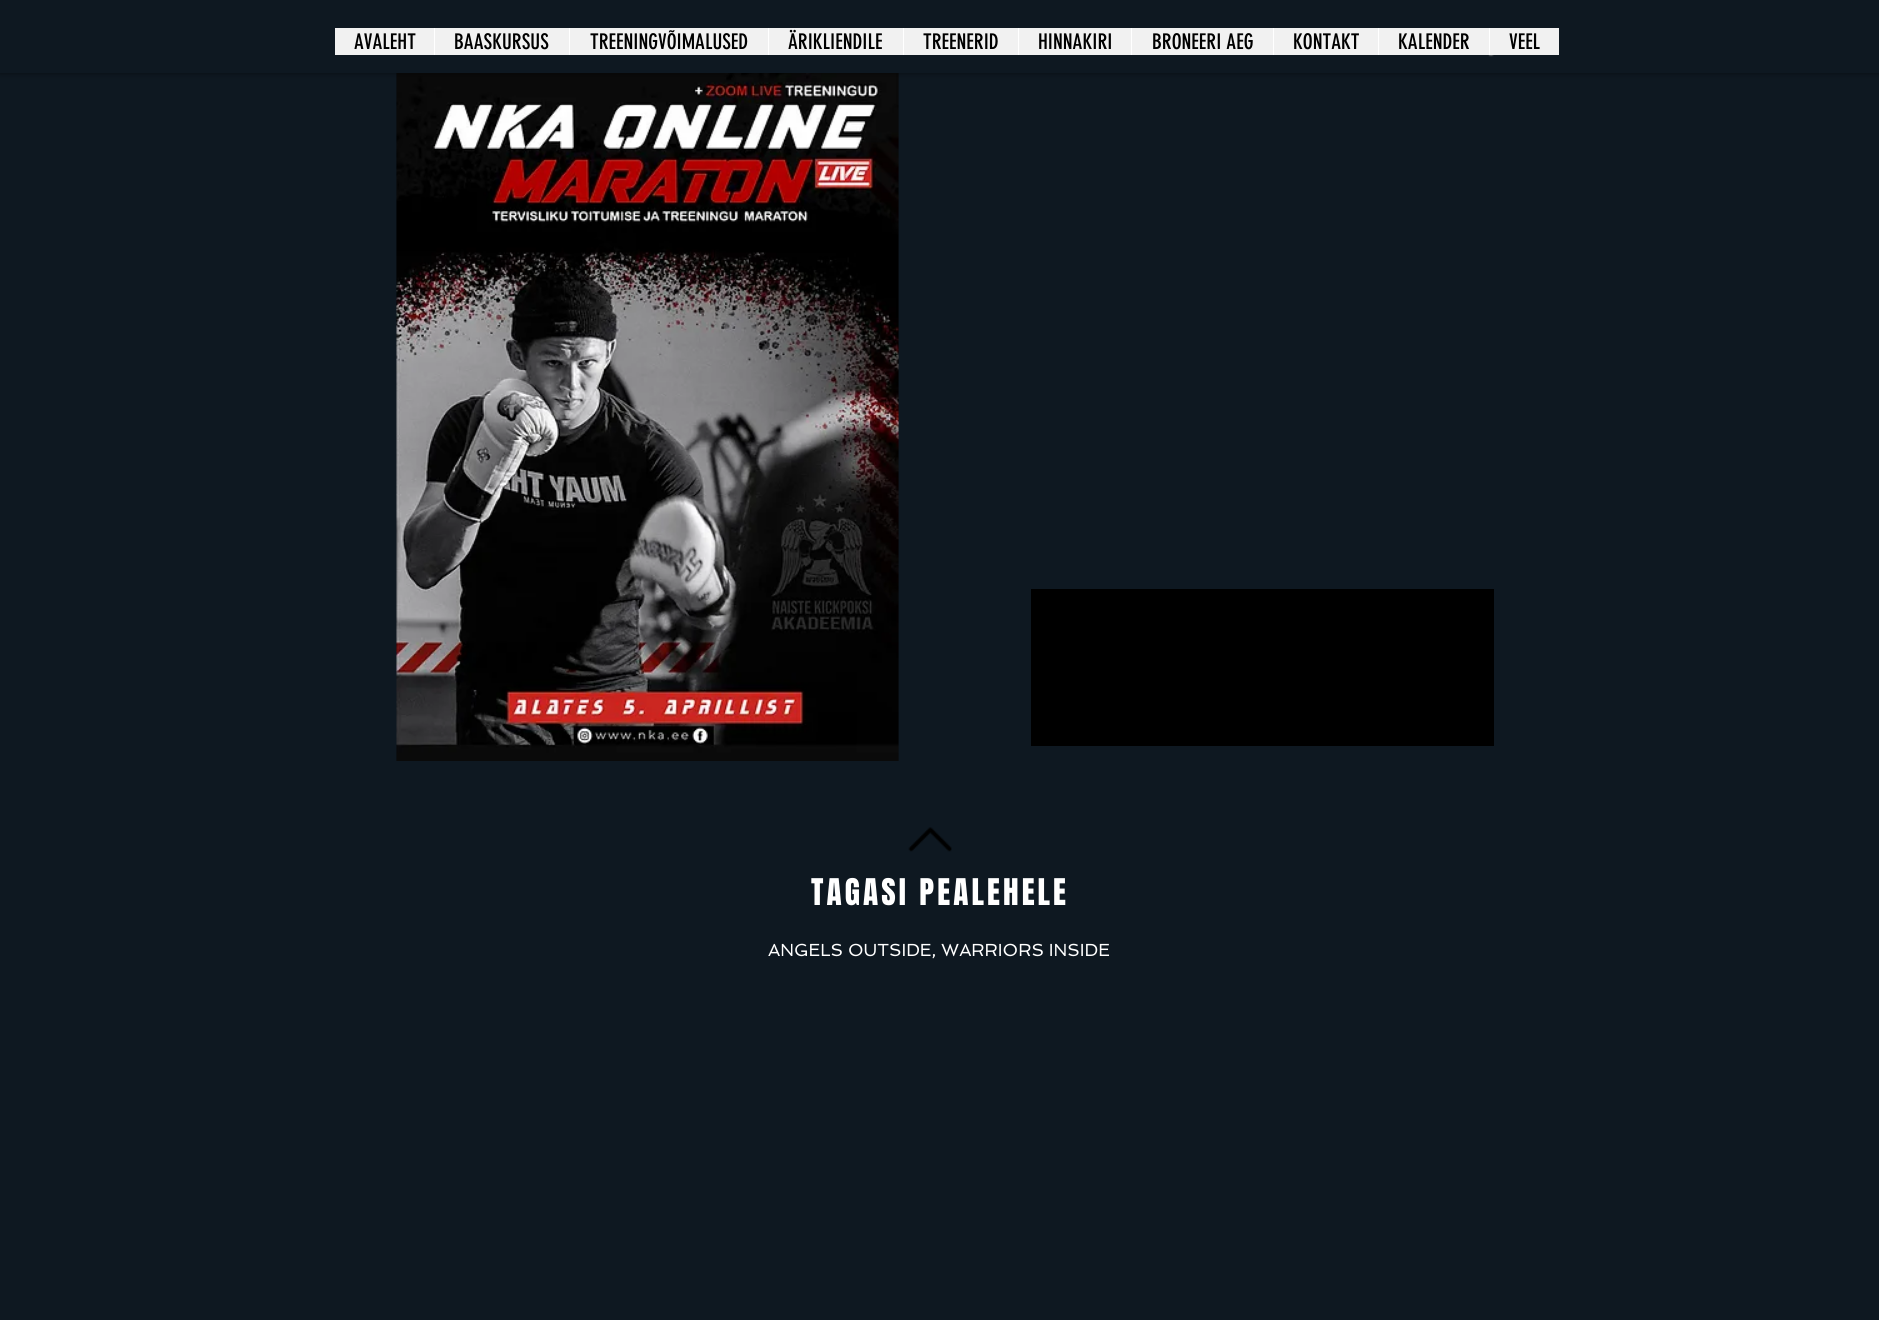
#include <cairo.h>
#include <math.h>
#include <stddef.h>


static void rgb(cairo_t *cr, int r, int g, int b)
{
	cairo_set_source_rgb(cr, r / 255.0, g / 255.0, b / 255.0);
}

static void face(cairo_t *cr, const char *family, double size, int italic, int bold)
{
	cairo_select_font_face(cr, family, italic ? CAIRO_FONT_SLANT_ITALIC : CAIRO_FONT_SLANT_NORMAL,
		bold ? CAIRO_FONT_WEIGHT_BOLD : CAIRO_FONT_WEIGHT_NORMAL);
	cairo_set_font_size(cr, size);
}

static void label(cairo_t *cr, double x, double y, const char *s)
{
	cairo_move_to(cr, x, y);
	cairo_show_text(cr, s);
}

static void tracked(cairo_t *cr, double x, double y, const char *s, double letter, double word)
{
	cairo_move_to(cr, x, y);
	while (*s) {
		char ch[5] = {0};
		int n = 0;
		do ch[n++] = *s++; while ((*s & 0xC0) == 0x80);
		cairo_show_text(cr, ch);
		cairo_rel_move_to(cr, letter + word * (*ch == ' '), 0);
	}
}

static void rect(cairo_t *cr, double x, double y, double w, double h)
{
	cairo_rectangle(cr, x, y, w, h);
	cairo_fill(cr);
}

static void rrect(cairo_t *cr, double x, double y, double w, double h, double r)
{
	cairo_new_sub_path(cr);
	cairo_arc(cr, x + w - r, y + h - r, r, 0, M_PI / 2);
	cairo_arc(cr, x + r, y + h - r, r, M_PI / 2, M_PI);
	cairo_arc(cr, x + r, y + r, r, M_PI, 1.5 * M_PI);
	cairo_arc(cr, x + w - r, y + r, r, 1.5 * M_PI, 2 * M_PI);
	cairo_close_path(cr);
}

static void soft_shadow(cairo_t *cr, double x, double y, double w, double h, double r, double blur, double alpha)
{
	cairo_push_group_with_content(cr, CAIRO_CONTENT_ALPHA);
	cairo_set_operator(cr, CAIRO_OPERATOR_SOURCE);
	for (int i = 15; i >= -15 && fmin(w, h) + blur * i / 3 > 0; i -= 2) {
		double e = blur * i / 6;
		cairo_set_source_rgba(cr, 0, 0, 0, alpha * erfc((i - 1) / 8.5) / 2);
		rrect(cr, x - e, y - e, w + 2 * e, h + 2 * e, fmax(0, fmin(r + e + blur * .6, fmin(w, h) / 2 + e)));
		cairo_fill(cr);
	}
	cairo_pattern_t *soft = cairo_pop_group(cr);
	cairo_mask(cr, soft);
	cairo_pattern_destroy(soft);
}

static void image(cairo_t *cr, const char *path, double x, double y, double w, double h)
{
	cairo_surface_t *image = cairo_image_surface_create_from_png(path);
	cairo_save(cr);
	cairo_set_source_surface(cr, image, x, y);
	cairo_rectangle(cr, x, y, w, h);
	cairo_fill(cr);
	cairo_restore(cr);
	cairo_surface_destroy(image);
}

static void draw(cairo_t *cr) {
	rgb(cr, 14, 24, 33);
	cairo_paint(cr);
	image(cr, "image1.png", 396, 73, 503, 688);
	rgb(cr, 0, 0, 0);
	soft_shadow(cr, 0, 0, 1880, 73, 0, 3, 0.5);
	rgb(cr, 14, 24, 33);
	rect(cr, 0, 0, 1879, 73);
	rgb(cr, 241, 241, 241);
	rect(cr, 335, 28, 1224, 27);
	face(cr, "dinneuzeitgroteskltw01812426", 21.25, 0, 0);
	rgb(cr, 0, 0, 0);
	label(cr, 354, 49, "AVALEHT");
	rgb(cr, 255, 255, 255);
	rect(cr, 434, 28, 1, 27);
	rgb(cr, 0, 0, 0);
	label(cr, 454, 49, "BAASKURSUS");
	rgb(cr, 255, 255, 255);
	rect(cr, 569, 28, 1, 27);
	rgb(cr, 0, 0, 0);
	label(cr, 590, 49, "TREENINGVÕIMALUSED");
	rgb(cr, 255, 255, 255);
	rect(cr, 768, 28, 1, 27);
	rgb(cr, 0, 0, 0);
	label(cr, 788, 49, "ÄRIKLIENDILE");
	rgb(cr, 255, 255, 255);
	rect(cr, 903, 28, 1, 27);
	rgb(cr, 0, 0, 0);
	label(cr, 923, 49, "TREENERID");
	rgb(cr, 255, 255, 255);
	rect(cr, 1018, 28, 1, 27);
	rgb(cr, 0, 0, 0);
	label(cr, 1038, 49, "HINNAKIRI");
	rgb(cr, 255, 255, 255);
	rect(cr, 1131, 28, 1, 27);
	rgb(cr, 0, 0, 0);
	label(cr, 1152, 49, "BRONEERI AEG");
	rgb(cr, 255, 255, 255);
	rect(cr, 1273, 28, 1, 27);
	rgb(cr, 0, 0, 0);
	label(cr, 1293, 49, "KONTAKT");
	rgb(cr, 255, 255, 255);
	rect(cr, 1378, 28, 1, 27);
	rgb(cr, 0, 0, 0);
	label(cr, 1398, 49, "KALENDER");
	rgb(cr, 255, 255, 255);
	rect(cr, 1489, 28, 1, 27);
	rgb(cr, 0, 0, 0);
	label(cr, 1509, 49, "VEEL");
	image(cr, "image0.png", 1488, 55, 6, 2);
	rect(cr, 1031, 589, 463, 157);
	image(cr, "image2.png", 908, 827, 44, 25);
	face(cr, "Anton", 31.25, 0, 0);
	rgb(cr, 255, 255, 255);
	tracked(cr, 811, 905, "TAGASI PEALEHELE", 3.1, 0);
	face(cr, "Spinnaker", 17.5, 0, 0);
	label(cr, 768, 956, "ANGELS OUTSIDE, WARRIORS INSIDE");
}

int main(void) {
	cairo_surface_t *surface = cairo_image_surface_create(CAIRO_FORMAT_RGB24, 1879, 1320);
	cairo_t *cr = cairo_create(surface);
	cairo_font_options_t *options = cairo_font_options_create();
	cairo_font_options_set_hint_metrics(options, CAIRO_HINT_METRICS_OFF);
	cairo_font_options_set_hint_style(options, CAIRO_HINT_STYLE_NONE);
	cairo_set_font_options(cr, options);
	cairo_set_miter_limit(cr, 4);
	draw(cr);
	cairo_surface_write_to_png(surface, "render.png");
	cairo_font_options_destroy(options);
	cairo_destroy(cr);
	cairo_surface_destroy(surface);
	return 0;
}
